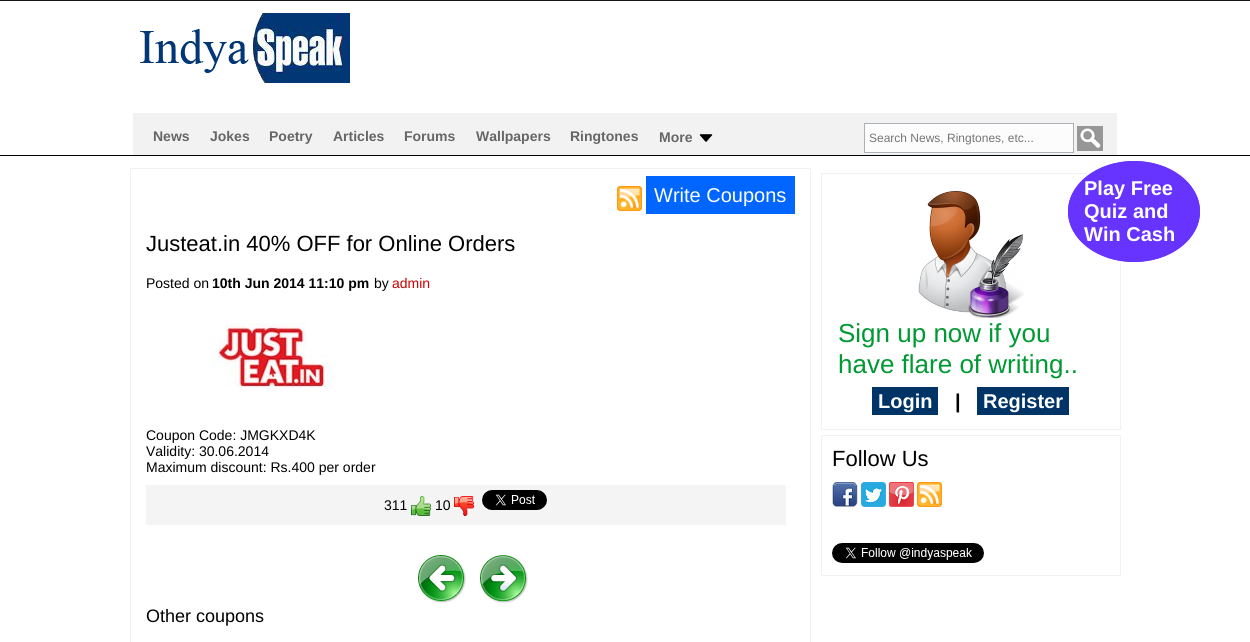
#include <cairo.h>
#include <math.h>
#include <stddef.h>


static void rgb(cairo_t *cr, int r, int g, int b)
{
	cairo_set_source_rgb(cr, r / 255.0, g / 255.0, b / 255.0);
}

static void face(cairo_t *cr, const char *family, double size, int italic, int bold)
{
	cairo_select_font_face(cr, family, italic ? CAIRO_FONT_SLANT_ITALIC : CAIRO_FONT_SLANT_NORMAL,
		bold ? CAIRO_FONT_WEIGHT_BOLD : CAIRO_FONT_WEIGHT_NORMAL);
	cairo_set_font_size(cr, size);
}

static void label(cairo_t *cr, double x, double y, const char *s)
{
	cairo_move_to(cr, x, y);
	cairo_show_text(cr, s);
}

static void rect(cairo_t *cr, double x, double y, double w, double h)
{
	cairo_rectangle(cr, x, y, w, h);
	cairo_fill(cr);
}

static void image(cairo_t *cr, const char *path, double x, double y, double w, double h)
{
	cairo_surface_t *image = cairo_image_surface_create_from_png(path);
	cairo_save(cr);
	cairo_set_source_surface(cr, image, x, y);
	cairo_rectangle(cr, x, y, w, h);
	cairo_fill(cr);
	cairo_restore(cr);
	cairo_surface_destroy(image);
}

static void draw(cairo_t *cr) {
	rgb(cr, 255, 255, 255);
	cairo_paint(cr);
	rgb(cr, 22, 22, 22);
	rect(cr, 0, 0, 1250, 1);
	image(cr, "image0.png", 140, 13, 210, 70);
	rgb(cr, 0, 0, 0);
	rect(cr, 0, 155, 1250, 1);
	rgb(cr, 242, 242, 242);
	rect(cr, 133, 113, 984, 42);
	face(cr, "Liberation Sans", 14, 0, 1);
	rgb(cr, 102, 102, 102);
	label(cr, 153, 141, "News");
	label(cr, 210, 141, "Jokes");
	label(cr, 269, 141, "Poetry");
	label(cr, 333, 141, "Articles");
	label(cr, 404, 141, "Forums");
	label(cr, 476, 141, "Wallpapers");
	label(cr, 570, 141, "Ringtones");
	label(cr, 659, 142, "More");
	image(cr, "image1.png", 699, 134, 14, 8);
	rgb(cr, 252, 252, 252);
	cairo_rectangle(cr, 864.5, 123.5, 209, 29);
	cairo_fill_preserve(cr);
	rgb(cr, 172, 177, 183);
	cairo_set_line_width(cr, 1);
	cairo_stroke(cr);
	face(cr, "Liberation Sans", 12, 0, 0);
	rgb(cr, 117, 117, 117);
	label(cr, 869, 142, "Search News, Ringtones, etc...");
	image(cr, "image2.png", 1077, 126, 26, 25);
	cairo_rectangle(cr, 130.5, 168.5, 680, 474);
	rgb(cr, 242, 242, 242);
	cairo_stroke(cr);
	image(cr, "image3.png", 617, 186, 25, 25);
	rgb(cr, 0, 102, 255);
	rect(cr, 646, 176, 149, 38);
	face(cr, "Liberation Sans", 20, 0, 0);
	rgb(cr, 255, 255, 255);
	label(cr, 654, 202, "Write Coupons");
	face(cr, "Liberation Sans", 22, 0, 0);
	rgb(cr, 0, 0, 0);
	label(cr, 146, 251, "Justeat.in 40% OFF for Online Orders");
	face(cr, "Liberation Sans", 14, 0, 0);
	label(cr, 146, 288, "Posted on");
	face(cr, "Liberation Sans", 14, 0, 1);
	label(cr, 212, 288, "10th Jun 2014 11:10 pm");
	face(cr, "Liberation Sans", 14, 0, 0);
	label(cr, 374, 288, "by");
	rgb(cr, 204, 0, 0);
	label(cr, 392, 288, "admin");
	image(cr, "image4.png", 210, 323, 126, 65);
	rgb(cr, 0, 0, 0);
	label(cr, 146, 440, "Coupon Code: JMGKXD4K");
	label(cr, 146, 456, "Validity: 30.06.2014");
	label(cr, 146, 472, "Maximum discount: Rs.400 per order");
	rgb(cr, 244, 244, 244);
	rect(cr, 146, 485, 640, 40);
	rgb(cr, 0, 0, 0);
	label(cr, 384, 510, "311");
	image(cr, "image5.png", 411, 496, 20, 20);
	label(cr, 435, 510, "10");
	image(cr, "image6.png", 454, 496, 20, 20);
	image(cr, "image7.png", 482, 490, 65, 20);
	image(cr, "image8.png", 418, 555, 48, 48);
	image(cr, "image9.png", 480, 555, 48, 48);
	face(cr, "Liberation Sans", 18, 0, 0);
	label(cr, 146, 622, "Other coupons");
	cairo_rectangle(cr, 821.5, 173.5, 299, 256);
	rgb(cr, 242, 242, 242);
	cairo_stroke(cr);
	image(cr, "image10.png", 918, 191, 106, 127);
	face(cr, "Liberation Sans", 26, 0, 0);
	rgb(cr, 0, 153, 51);
	label(cr, 838, 342, "Sign up now if you");
	label(cr, 838, 373, "have flare of writing..");
	rgb(cr, 0, 51, 102);
	rect(cr, 872, 387, 66, 28);
	face(cr, "Liberation Sans", 20, 0, 1);
	rgb(cr, 255, 255, 255);
	label(cr, 878, 408, "Login");
	rgb(cr, 0, 0, 0);
	label(cr, 955, 408, "|");
	rgb(cr, 0, 51, 102);
	rect(cr, 977, 387, 92, 28);
	rgb(cr, 255, 255, 255);
	label(cr, 983, 408, "Register");
	cairo_rectangle(cr, 821.5, 435.5, 299, 140);
	rgb(cr, 242, 242, 242);
	cairo_stroke(cr);
	face(cr, "Liberation Sans", 22, 0, 0);
	rgb(cr, 0, 0, 0);
	label(cr, 832, 466, "Follow Us");
	image(cr, "image11.png", 832, 482, 26, 25);
	image(cr, "image12.png", 861, 482, 25, 25);
	image(cr, "image13.png", 889, 482, 25, 25);
	image(cr, "image3.png", 917, 482, 25, 25);
	image(cr, "image14.png", 832, 543, 152, 20);
	rgb(cr, 102, 51, 255);
	cairo_new_path(cr);
	cairo_move_to(cr, 1134, 161);
	cairo_curve_to(cr, 1170.5, 161, 1200, 183.5, 1200, 211.5);
	cairo_curve_to(cr, 1200, 239.5, 1170.5, 262, 1134, 262);
	cairo_curve_to(cr, 1097.5, 262, 1068, 239.5, 1068, 211.5);
	cairo_curve_to(cr, 1068, 183.5, 1097.5, 161, 1134, 161);
	cairo_close_path(cr);
	cairo_fill(cr);
	cairo_new_path(cr);
	cairo_move_to(cr, 1134, 161.5);
	cairo_curve_to(cr, 1170, 161.5, 1199.5, 184, 1199.5, 211.5);
	cairo_curve_to(cr, 1199.5, 239, 1170, 261.5, 1134, 261.5);
	cairo_curve_to(cr, 1098, 261.5, 1068.5, 239, 1068.5, 211.5);
	cairo_curve_to(cr, 1068.5, 184, 1098, 161.5, 1134, 161.5);
	cairo_close_path(cr);
	cairo_stroke(cr);
	face(cr, "Liberation Sans", 20, 0, 1);
	rgb(cr, 255, 255, 255);
	label(cr, 1084, 195, "Play Free");
	label(cr, 1084, 218, "Quiz and");
	label(cr, 1084, 241, "Win Cash");
}

int main(void) {
	cairo_surface_t *surface = cairo_image_surface_create(CAIRO_FORMAT_RGB24, 1250, 642);
	cairo_t *cr = cairo_create(surface);
	cairo_font_options_t *options = cairo_font_options_create();
	cairo_font_options_set_hint_metrics(options, CAIRO_HINT_METRICS_OFF);
	cairo_font_options_set_hint_style(options, CAIRO_HINT_STYLE_NONE);
	cairo_set_font_options(cr, options);
	cairo_set_miter_limit(cr, 4);
	draw(cr);
	cairo_surface_write_to_png(surface, "render.png");
	cairo_font_options_destroy(options);
	cairo_destroy(cr);
	cairo_surface_destroy(surface);
	return 0;
}
